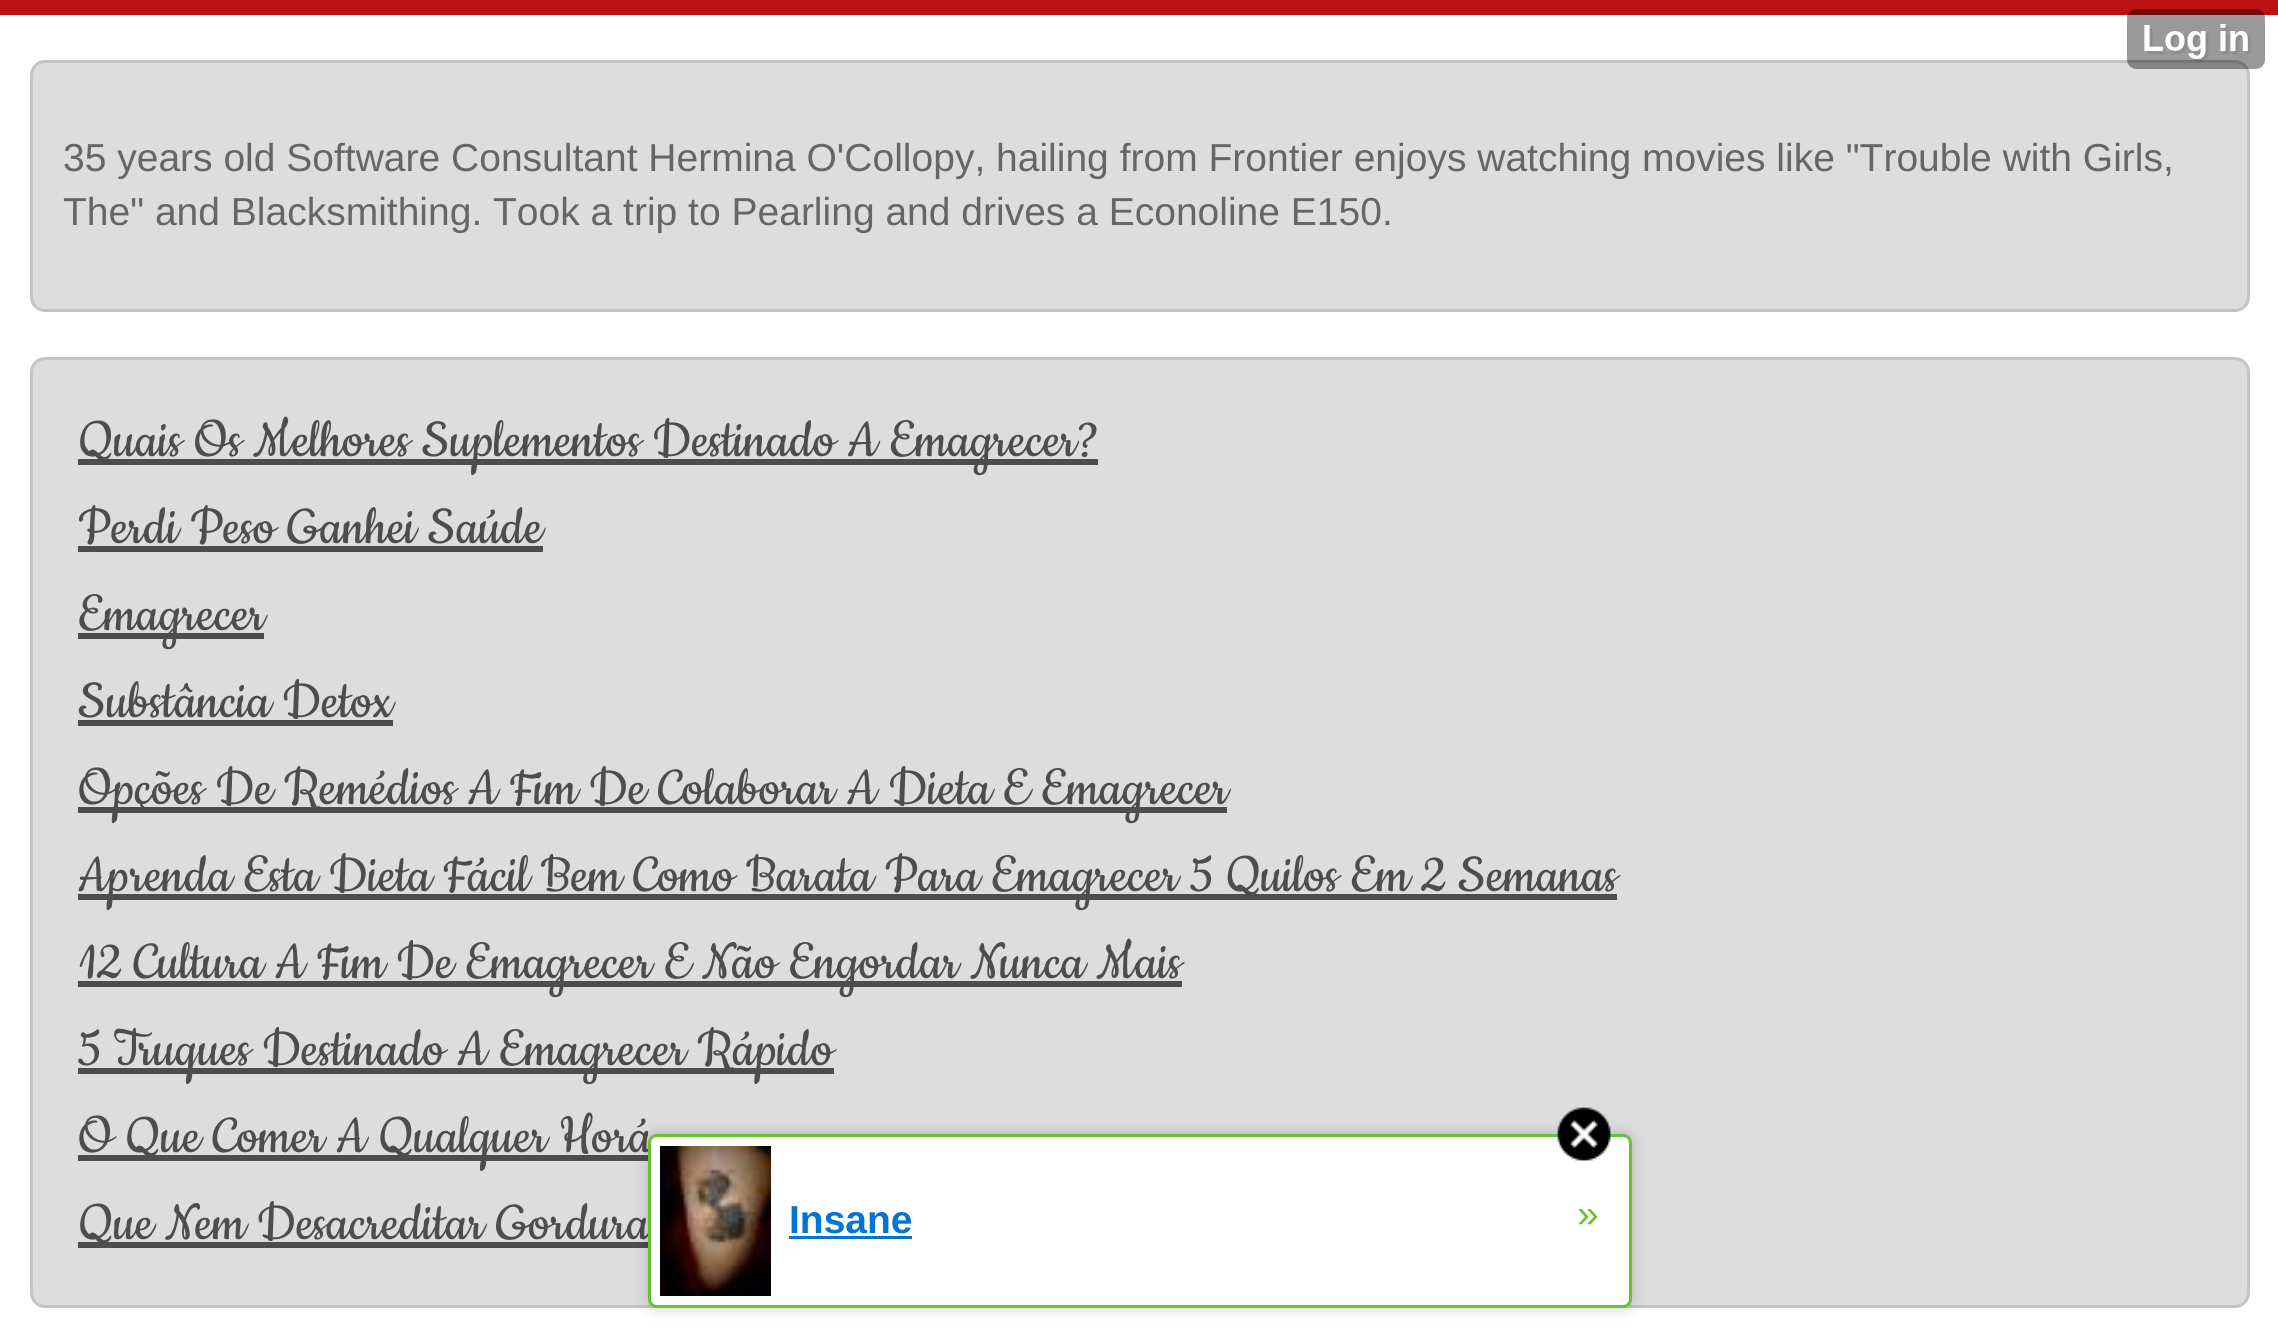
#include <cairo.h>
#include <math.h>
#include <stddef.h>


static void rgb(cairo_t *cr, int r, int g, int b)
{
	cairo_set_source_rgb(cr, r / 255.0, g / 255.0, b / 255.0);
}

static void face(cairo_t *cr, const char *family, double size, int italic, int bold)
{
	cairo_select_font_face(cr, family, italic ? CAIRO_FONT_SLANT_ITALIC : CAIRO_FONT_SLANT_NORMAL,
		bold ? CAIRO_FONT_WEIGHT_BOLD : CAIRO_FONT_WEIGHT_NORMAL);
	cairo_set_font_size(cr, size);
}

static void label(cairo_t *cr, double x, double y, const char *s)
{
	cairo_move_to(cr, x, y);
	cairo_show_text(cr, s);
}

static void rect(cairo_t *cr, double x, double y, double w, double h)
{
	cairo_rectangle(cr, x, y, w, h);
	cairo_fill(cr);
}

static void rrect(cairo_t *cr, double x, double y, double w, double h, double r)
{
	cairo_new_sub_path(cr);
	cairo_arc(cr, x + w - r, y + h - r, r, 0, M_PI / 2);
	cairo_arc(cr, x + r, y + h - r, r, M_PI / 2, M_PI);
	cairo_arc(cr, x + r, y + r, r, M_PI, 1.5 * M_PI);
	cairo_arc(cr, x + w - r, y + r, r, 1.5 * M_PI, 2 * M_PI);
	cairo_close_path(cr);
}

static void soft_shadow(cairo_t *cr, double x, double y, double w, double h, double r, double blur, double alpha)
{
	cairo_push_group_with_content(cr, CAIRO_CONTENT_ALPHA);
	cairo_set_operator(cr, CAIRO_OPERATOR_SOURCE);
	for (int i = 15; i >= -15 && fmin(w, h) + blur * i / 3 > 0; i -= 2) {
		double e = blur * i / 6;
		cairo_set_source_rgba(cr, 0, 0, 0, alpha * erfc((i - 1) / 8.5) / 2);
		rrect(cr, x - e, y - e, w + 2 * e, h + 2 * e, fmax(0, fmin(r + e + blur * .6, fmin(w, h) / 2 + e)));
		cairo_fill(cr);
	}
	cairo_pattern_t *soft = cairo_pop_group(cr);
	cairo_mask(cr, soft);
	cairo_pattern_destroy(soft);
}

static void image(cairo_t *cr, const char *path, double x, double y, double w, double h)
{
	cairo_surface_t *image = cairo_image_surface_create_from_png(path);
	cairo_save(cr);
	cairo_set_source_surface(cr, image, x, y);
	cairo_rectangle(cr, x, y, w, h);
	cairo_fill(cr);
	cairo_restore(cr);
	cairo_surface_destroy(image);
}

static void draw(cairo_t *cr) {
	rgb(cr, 255, 255, 255);
	cairo_paint(cr);
	rgb(cr, 187, 17, 17);
	rect(cr, 0, 0, 2278, 15);
	rgb(cr, 221, 221, 221);
	rrect(cr, 31.5, 61.5, 2217, 249, 13.5);
	cairo_fill_preserve(cr);
	rgb(cr, 196, 196, 196);
	cairo_set_line_width(cr, 3);
	cairo_stroke(cr);
	image(cr, "image0.png", 2127, 9, 138, 60);
	face(cr, "Liberation Sans", 39, 0, 0);
	rgb(cr, 102, 102, 102);
	label(cr, 63, 171, "35 years old Software Consultant Hermina O'Collopy, hailing from Frontier enjoys watching movies like \"Trouble with Girls,");
	label(cr, 63, 225, "The\" and Blacksmithing. Took a trip to Pearling and drives a Econoline E150.");
	rgb(cr, 221, 221, 221);
	rrect(cr, 31.5, 358.5, 2217, 948, 13.5);
	cairo_fill_preserve(cr);
	rgb(cr, 196, 196, 196);
	cairo_stroke(cr);
	rgb(cr, 77, 77, 77);
	rect(cr, 78, 459, 1020, 6);
	face(cr, "Cookie", 60, 0, 0);
	label(cr, 78, 456, "Quais Os Melhores Suplementos Destinado A Emagrecer?");
	label(cr, 78, 543, "Perdi Peso Ganhei Saúde");
	rect(cr, 78, 546, 465, 6);
	rect(cr, 78, 633, 186, 6);
	label(cr, 78, 630, "Emagrecer");
	label(cr, 78, 717, "Substância Detox");
	rect(cr, 78, 720, 315, 6);
	rect(cr, 78, 807, 1149, 6);
	label(cr, 78, 804, "Opções De Remédios A Fim De Colaborar A Dieta E Emagrecer");
	rect(cr, 78, 894, 1539, 6);
	label(cr, 78, 891, "Aprenda Esta Dieta Fácil Bem Como Barata Para Emagrecer 5 Quilos Em 2 Semanas");
	rect(cr, 78, 981, 1104, 6);
	label(cr, 78, 978, "12 Cultura A Fim De Emagrecer E Não Engordar Nunca Mais");
	rect(cr, 78, 1068, 756, 6);
	label(cr, 78, 1065, "5 Truques Destinado A Emagrecer Rápido");
	rect(cr, 78, 1155, 570, 6);
	label(cr, 78, 1152, "O Que Comer A Qualquer Horá");
	rect(cr, 78, 1242, 570, 6);
	label(cr, 78, 1239, "Que Nem Desacreditar Gordura");
	rgb(cr, 0, 0, 0);
	soft_shadow(cr, 648, 1134, 984, 174, 9, 7.5, 0.2);
	rgb(cr, 255, 255, 255);
	rrect(cr, 649.5, 1135.5, 981, 171, 7.5);
	cairo_fill_preserve(cr);
	rgb(cr, 107, 193, 53);
	cairo_stroke(cr);
	image(cr, "image1.png", 1557, 1107, 54, 55);
	image(cr, "image2.png", 660, 1146, 111, 150);
	face(cr, "Liberation Sans", 39, 0, 1);
	rgb(cr, 2, 116, 212);
	label(cr, 789, 1233, "Insane");
	rect(cr, 789, 1236, 123, 3);
	face(cr, "Liberation Sans", 39, 0, 0);
	rgb(cr, 107, 193, 53);
	label(cr, 1577, 1227, "»");
}

int main(void) {
	cairo_surface_t *surface = cairo_image_surface_create(CAIRO_FORMAT_RGB24, 2278, 1341);
	cairo_t *cr = cairo_create(surface);
	cairo_font_options_t *options = cairo_font_options_create();
	cairo_font_options_set_hint_metrics(options, CAIRO_HINT_METRICS_OFF);
	cairo_font_options_set_hint_style(options, CAIRO_HINT_STYLE_NONE);
	cairo_set_font_options(cr, options);
	cairo_set_miter_limit(cr, 4);
	draw(cr);
	cairo_surface_write_to_png(surface, "render.png");
	cairo_font_options_destroy(options);
	cairo_destroy(cr);
	cairo_surface_destroy(surface);
	return 0;
}
